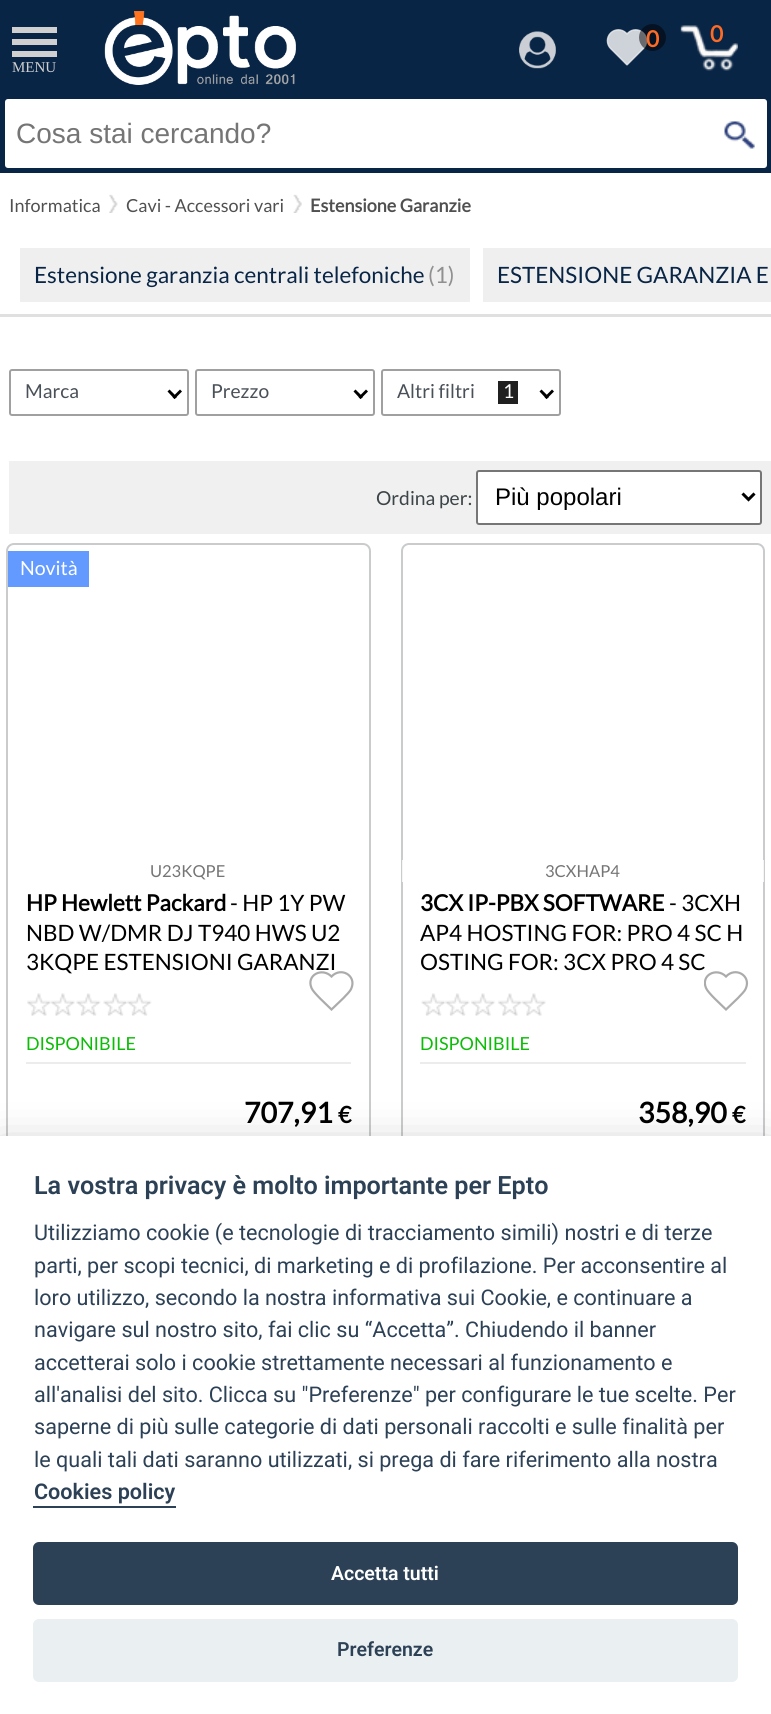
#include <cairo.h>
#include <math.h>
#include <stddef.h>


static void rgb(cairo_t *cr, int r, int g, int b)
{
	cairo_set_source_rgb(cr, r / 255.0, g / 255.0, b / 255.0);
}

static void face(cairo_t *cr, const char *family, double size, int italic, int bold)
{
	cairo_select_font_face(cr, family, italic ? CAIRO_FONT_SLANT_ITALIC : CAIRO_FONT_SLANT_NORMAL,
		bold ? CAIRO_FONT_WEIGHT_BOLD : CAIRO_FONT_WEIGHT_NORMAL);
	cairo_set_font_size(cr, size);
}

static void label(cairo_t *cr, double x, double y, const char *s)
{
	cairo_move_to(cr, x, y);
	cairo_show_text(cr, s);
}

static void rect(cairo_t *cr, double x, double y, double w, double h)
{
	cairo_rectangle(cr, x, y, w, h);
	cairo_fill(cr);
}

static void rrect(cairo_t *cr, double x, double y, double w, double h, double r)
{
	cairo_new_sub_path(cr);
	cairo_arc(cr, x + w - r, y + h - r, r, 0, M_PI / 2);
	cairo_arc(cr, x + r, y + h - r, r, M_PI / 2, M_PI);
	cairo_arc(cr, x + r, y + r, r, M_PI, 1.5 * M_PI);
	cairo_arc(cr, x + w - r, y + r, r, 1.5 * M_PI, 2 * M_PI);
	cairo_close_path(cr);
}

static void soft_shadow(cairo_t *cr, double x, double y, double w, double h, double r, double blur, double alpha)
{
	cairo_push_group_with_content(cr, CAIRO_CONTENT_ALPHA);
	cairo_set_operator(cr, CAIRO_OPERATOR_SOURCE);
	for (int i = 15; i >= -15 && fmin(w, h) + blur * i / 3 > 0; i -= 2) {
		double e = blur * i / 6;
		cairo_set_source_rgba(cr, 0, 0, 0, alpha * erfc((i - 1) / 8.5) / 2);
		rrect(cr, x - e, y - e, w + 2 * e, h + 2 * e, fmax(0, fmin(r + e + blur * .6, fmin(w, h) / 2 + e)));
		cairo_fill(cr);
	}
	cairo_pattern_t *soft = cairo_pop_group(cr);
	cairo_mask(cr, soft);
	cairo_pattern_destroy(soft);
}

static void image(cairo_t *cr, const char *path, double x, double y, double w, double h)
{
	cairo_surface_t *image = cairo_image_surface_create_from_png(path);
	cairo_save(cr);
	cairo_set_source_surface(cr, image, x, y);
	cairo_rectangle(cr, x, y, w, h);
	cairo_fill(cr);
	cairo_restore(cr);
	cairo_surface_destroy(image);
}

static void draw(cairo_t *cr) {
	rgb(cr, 255, 255, 255);
	cairo_paint(cr);
	rgb(cr, 9, 37, 70);
	rect(cr, 0, 0, 771, 173);
	image(cr, "image0.png", 104, 11, 192, 74);
	image(cr, "image1.png", 519, 31, 37, 38);
	image(cr, "image2.png", 606, 29, 42, 37);
	cairo_set_source_rgba(cr, 0, 0, 0, 0.5);
	cairo_arc(cr, 652.5, 37.5, 13.5, 0, 2 * M_PI);
	cairo_fill(cr);
	face(cr, "Lato", 22.5, 0, 1);
	rgb(cr, 255, 107, 36);
	label(cr, 646, 47, "0");
	image(cr, "image3.png", 680, 25, 58, 46);
	label(cr, 710, 42, "0");
	rgb(cr, 208, 208, 208);
	rect(cr, 12, 27, 45, 6);
	rect(cr, 12, 39, 45, 6);
	rect(cr, 12, 51, 45, 6);
	face(cr, "Liberation Serif", 15, 0, 0);
	label(cr, 12, 72, "MENU");
	rgb(cr, 255, 255, 255);
	rrect(cr, 5, 99, 762, 69, 3);
	cairo_fill(cr);
	face(cr, "Liberation Sans", 28, 0, 0);
	rgb(cr, 117, 117, 117);
	label(cr, 16, 143, "Cosa stai cercando?");
	image(cr, "image4.png", 724, 121, 31, 28);
	face(cr, "Lato", 18, 0, 0);
	rgb(cr, 80, 80, 80);
	label(cr, 9, 212, "Informatica");
	image(cr, "image5.png", 109, 194, 9, 19);
	label(cr, 126, 212, "Cavi - Accessori vari");
	image(cr, "image6.png", 293, 194, 9, 19);
	face(cr, "Lato", 18, 0, 1);
	label(cr, 310, 212, "Estensione Garanzie");
	rgb(cr, 224, 224, 224);
	rect(cr, 0, 314, 771, 3);
	rgb(cr, 239, 239, 240);
	rect(cr, 20, 248, 450, 54);
	face(cr, "Lato", 22.5, 0, 0);
	rgb(cr, 9, 37, 70);
	label(cr, 34, 283, "Estensione garanzia centrali telefoniche");
	rgb(cr, 144, 144, 144);
	label(cr, 428, 283, "(1)");
	rgb(cr, 239, 239, 240);
	rect(cr, 483, 248, 288, 54);
	rgb(cr, 9, 37, 70);
	label(cr, 497, 283, "ESTENSIONE GARANZIA E");
	rrect(cr, 10, 370, 178, 45, 2);
	rgb(cr, 160, 160, 160);
	cairo_stroke(cr);
	face(cr, "Lato", 19.25, 0, 0);
	rgb(cr, 73, 80, 87);
	label(cr, 25, 398, "Marca");
	rgb(cr, 0, 0, 0);
	cairo_new_path(cr);
	cairo_move_to(cr, 182, 391.5);
	cairo_line_to(cr, 174.5, 399);
	cairo_line_to(cr, 172.5, 397);
	cairo_line_to(cr, 180, 389.5);
	cairo_close_path(cr);
	cairo_fill(cr);
	cairo_new_path(cr);
	cairo_move_to(cr, 177, 397);
	cairo_line_to(cr, 174.5, 399);
	cairo_line_to(cr, 167.5, 391.5);
	cairo_line_to(cr, 169.5, 389.5);
	cairo_close_path(cr);
	cairo_fill(cr);
	rrect(cr, 196, 370, 178, 45, 2);
	rgb(cr, 160, 160, 160);
	cairo_stroke(cr);
	rgb(cr, 73, 80, 87);
	label(cr, 211, 398, "Prezzo");
	rgb(cr, 0, 0, 0);
	cairo_new_path(cr);
	cairo_move_to(cr, 368, 391.5);
	cairo_line_to(cr, 360.5, 399);
	cairo_line_to(cr, 358.5, 397);
	cairo_line_to(cr, 366, 389.5);
	cairo_close_path(cr);
	cairo_fill(cr);
	cairo_new_path(cr);
	cairo_move_to(cr, 363, 397);
	cairo_line_to(cr, 360.5, 399);
	cairo_line_to(cr, 353.5, 391.5);
	cairo_line_to(cr, 355.5, 389.5);
	cairo_close_path(cr);
	cairo_fill(cr);
	rrect(cr, 382, 370, 178, 45, 2);
	rgb(cr, 160, 160, 160);
	cairo_stroke(cr);
	rgb(cr, 73, 80, 87);
	label(cr, 397, 398, "Altri filtri");
	rgb(cr, 32, 32, 32);
	rect(cr, 498, 381, 20, 23);
	rgb(cr, 255, 255, 255);
	label(cr, 503, 398, "1");
	rgb(cr, 0, 0, 0);
	cairo_new_path(cr);
	cairo_move_to(cr, 554, 391.5);
	cairo_line_to(cr, 546.5, 399);
	cairo_line_to(cr, 544.5, 397);
	cairo_line_to(cr, 552, 389.5);
	cairo_close_path(cr);
	cairo_fill(cr);
	cairo_new_path(cr);
	cairo_move_to(cr, 549, 397);
	cairo_line_to(cr, 546.5, 399);
	cairo_line_to(cr, 539.5, 391.5);
	cairo_line_to(cr, 541.5, 389.5);
	cairo_close_path(cr);
	cairo_fill(cr);
	rgb(cr, 240, 240, 240);
	rect(cr, 9, 461, 762, 73);
	rgb(cr, 59, 68, 71);
	label(cr, 376, 505, "Ordina per:");
	rgb(cr, 255, 255, 255);
	rrect(cr, 477, 471, 284, 53, 2);
	cairo_fill_preserve(cr);
	rgb(cr, 118, 118, 118);
	cairo_stroke(cr);
	cairo_new_path(cr);
	cairo_move_to(cr, 742.5, 493.5);
	cairo_line_to(cr, 748.5, 499.5);
	cairo_line_to(cr, 754.5, 493.5);
	rgb(cr, 0, 0, 0);
	cairo_set_line_width(cr, 3);
	cairo_stroke(cr);
	face(cr, "Liberation Sans", 24, 0, 0);
	label(cr, 495, 505, "Più popolari");
	rrect(cr, 7, 544, 363, 603, 7);
	rgb(cr, 202, 203, 205);
	cairo_set_line_width(cr, 2);
	cairo_stroke(cr);
	rgb(cr, 99, 154, 255);
	rect(cr, 8, 551, 81, 36);
	face(cr, "Lato", 19.5, 0, 0);
	rgb(cr, 255, 255, 255);
	label(cr, 20, 575, "Novità");
	face(cr, "Lato", 16.5, 0, 0);
	rgb(cr, 117, 117, 117);
	label(cr, 150, 877, "U23KQPE");
	face(cr, "Lato", 22.5, 0, 1);
	rgb(cr, 0, 0, 0);
	label(cr, 26, 911, "HP Hewlett Packard");
	face(cr, "Lato", 22.5, 0, 0);
	label(cr, 230, 911, "- HP 1Y PW");
	label(cr, 26, 941, "NBD W/DMR DJ T940 HWS U2");
	label(cr, 26, 970, "3KQPE ESTENSIONI GARANZI");
	image(cr, "image7.png", 27, 993, 125, 23);
	cairo_new_path(cr);
	cairo_move_to(cr, 331.5, 1009.5);
	cairo_line_to(cr, 343.5, 998);
	cairo_curve_to(cr, 346, 995, 350, 992, 351.5, 988);
	cairo_curve_to(cr, 356.5, 975.5, 341, 966.5, 331.5, 976.5);
	cairo_curve_to(cr, 322, 967, 306, 975, 311.5, 988);
	cairo_curve_to(cr, 313.5, 993, 327, 1005, 331.5, 1009.5);
	cairo_close_path(cr);
	rgb(cr, 171, 171, 171);
	cairo_set_line_width(cr, 2.2);
	cairo_stroke(cr);
	face(cr, "Lato", 18, 0, 0);
	rgb(cr, 12, 188, 7);
	label(cr, 26, 1050, "DISPONIBILE");
	rgb(cr, 236, 236, 236);
	rect(cr, 26, 1062, 325, 2);
	face(cr, "Lato", 28.5, 0, 1);
	rgb(cr, 0, 0, 0);
	label(cr, 244, 1123, "707,91");
	face(cr, "Lato", 23, 0, 1);
	label(cr, 338, 1123, "€");
	rrect(cr, 402, 544, 362, 603, 7);
	rgb(cr, 202, 203, 205);
	cairo_set_line_width(cr, 2);
	cairo_stroke(cr);
	cairo_set_source_rgba(cr, 1, 1, 1, 0.8);
	rect(cr, 402, 860, 362, 22);
	face(cr, "Lato", 16.5, 0, 0);
	rgb(cr, 117, 117, 117);
	label(cr, 545, 877, "3CXHAP4");
	face(cr, "Lato", 22.5, 0, 1);
	rgb(cr, 0, 0, 0);
	label(cr, 420, 911, "3CX IP-PBX SOFTWARE");
	face(cr, "Lato", 22.5, 0, 0);
	label(cr, 669, 911, "- 3CXH");
	label(cr, 420, 941, "AP4 HOSTING FOR: PRO 4 SC H");
	label(cr, 420, 970, "OSTING FOR: 3CX PRO 4 SC");
	image(cr, "image8.png", 421, 993, 125, 23);
	cairo_save(cr);
	cairo_rectangle(cr, 704, 969, 45, 45);
	cairo_clip(cr);
	cairo_new_path(cr);
	cairo_move_to(cr, 726, 1009.5);
	cairo_line_to(cr, 738, 998);
	cairo_curve_to(cr, 740.5, 995, 744.5, 992, 746, 988);
	cairo_curve_to(cr, 751, 975.5, 735.5, 966.5, 726, 976.5);
	cairo_curve_to(cr, 716.5, 967, 700.5, 975, 706, 988);
	cairo_curve_to(cr, 708, 993, 721.5, 1005, 726, 1009.5);
	cairo_close_path(cr);
	rgb(cr, 171, 171, 171);
	cairo_set_line_width(cr, 2.2);
	cairo_stroke(cr);
	cairo_restore(cr);
	face(cr, "Lato", 18, 0, 0);
	rgb(cr, 12, 188, 7);
	label(cr, 420, 1050, "DISPONIBILE");
	rgb(cr, 236, 236, 236);
	rect(cr, 420, 1062, 326, 2);
	face(cr, "Lato", 28.5, 0, 1);
	rgb(cr, 0, 0, 0);
	label(cr, 638, 1123, "358,90");
	face(cr, "Lato", 23, 0, 1);
	label(cr, 732, 1123, "€");
	rgb(cr, 2, 2, 3);
	soft_shadow(cr, 0, 1151, 771, 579, 0, 22.5, 0.28);
	rgb(cr, 255, 255, 255);
	rect(cr, 0, 1136, 771, 578);
	face(cr, "Roboto SemiBold", 25.2, 0, 0);
	rgb(cr, 45, 65, 86);
	label(cr, 34, 1194, "La vostra privacy è molto importante per Epto");
	face(cr, "Roboto", 21.6, 0, 0);
	label(cr, 34, 1240, "Utilizziamo cookie (e tecnologie di tracciamento simili) nostri e di terze");
	label(cr, 34, 1273, "parti, per scopi tecnici, di marketing e di profilazione. Per acconsentire al");
	label(cr, 34, 1305, "loro utilizzo, secondo la nostra informativa sui Cookie, e continuare a");
	label(cr, 34, 1337, "navigare sul nostro sito, fai clic su “Accetta”. Chiudendo il banner");
	label(cr, 34, 1370, "accetterai solo i cookie strettamente necessari al funzionamento e");
	label(cr, 34, 1402, "all'analisi del sito. Clicca su \"Preferenze\" per configurare le tue scelte. Per");
	label(cr, 34, 1434, "saperne di più sulle categorie di dati personali raccolti e sulle finalità per");
	label(cr, 34, 1467, "le quali tali dati saranno utilizzati, si prega di fare riferimento alla nostra");
	face(cr, "Roboto SemiBold", 21.6, 0, 0);
	label(cr, 34, 1499, "Cookies policy");
	rect(cr, 33, 1506, 143, 2);
	rrect(cr, 33, 1542, 705, 63, 6);
	cairo_fill(cr);
	face(cr, "Roboto SemiBold", 19.5, 0, 0);
	rgb(cr, 255, 255, 255);
	label(cr, 331, 1580, "Accetta tutti");
	rgb(cr, 234, 239, 242);
	rrect(cr, 33, 1619, 705, 63, 6);
	cairo_fill(cr);
	rgb(cr, 45, 65, 86);
	label(cr, 337, 1656, "Preferenze");
}

int main(void) {
	cairo_surface_t *surface = cairo_image_surface_create(CAIRO_FORMAT_RGB24, 771, 1714);
	cairo_t *cr = cairo_create(surface);
	cairo_font_options_t *options = cairo_font_options_create();
	cairo_font_options_set_hint_metrics(options, CAIRO_HINT_METRICS_OFF);
	cairo_font_options_set_hint_style(options, CAIRO_HINT_STYLE_NONE);
	cairo_set_font_options(cr, options);
	cairo_set_miter_limit(cr, 4);
	draw(cr);
	cairo_surface_write_to_png(surface, "render.png");
	cairo_font_options_destroy(options);
	cairo_destroy(cr);
	cairo_surface_destroy(surface);
	return 0;
}
